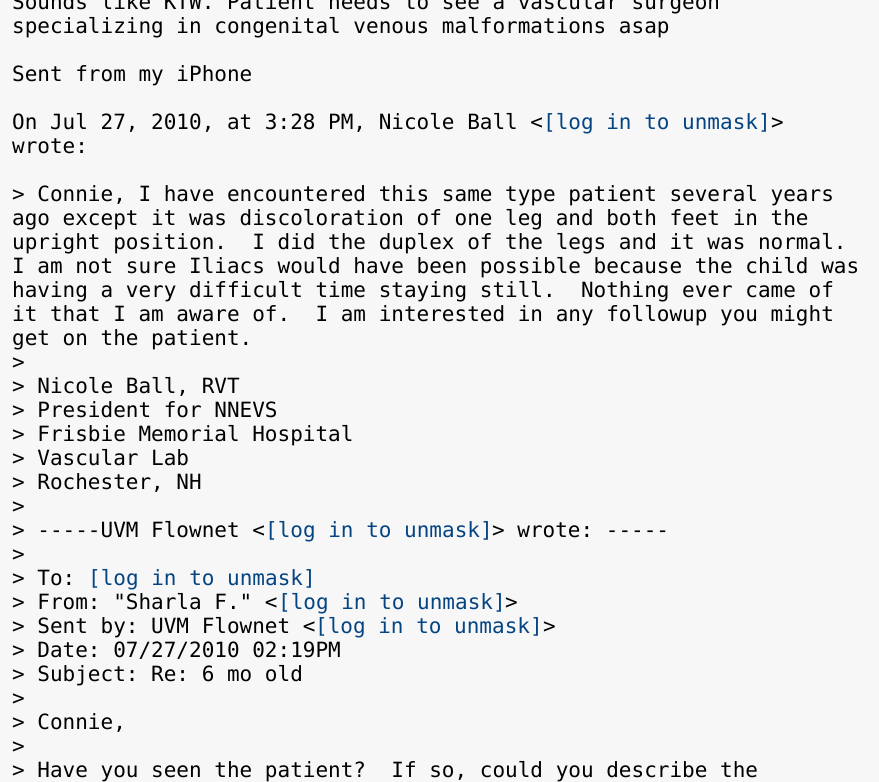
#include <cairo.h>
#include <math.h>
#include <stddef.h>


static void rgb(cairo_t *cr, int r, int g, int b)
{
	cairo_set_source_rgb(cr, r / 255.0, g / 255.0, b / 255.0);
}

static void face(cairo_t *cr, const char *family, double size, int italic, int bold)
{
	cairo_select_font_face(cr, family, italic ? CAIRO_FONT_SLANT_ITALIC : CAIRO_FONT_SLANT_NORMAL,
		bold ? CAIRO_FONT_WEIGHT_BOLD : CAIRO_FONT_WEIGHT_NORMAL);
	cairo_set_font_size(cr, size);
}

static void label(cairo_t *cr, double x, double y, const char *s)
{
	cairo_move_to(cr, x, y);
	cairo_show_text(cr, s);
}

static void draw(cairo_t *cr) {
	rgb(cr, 247, 247, 247);
	cairo_paint(cr);
	face(cr, "DejaVu Sans Mono", 21, 0, 0);
	rgb(cr, 0, 0, 0);
	label(cr, 12, 9, "Sounds like KTW. Patient needs to see a vascular surgeon");
	label(cr, 12, 33, "specializing in congenital venous malformations asap");
	label(cr, 12, 81, "Sent from my iPhone");
	label(cr, 12, 129, "On Jul 27, 2010, at 3:28 PM, Nicole Ball <");
	rgb(cr, 5, 68, 131);
	label(cr, 543, 129, "[log in to unmask]");
	rgb(cr, 0, 0, 0);
	label(cr, 771, 129, ">");
	label(cr, 12, 153, "wrote:");
	label(cr, 12, 201, "> Connie, I have encountered this same type patient several years");
	label(cr, 12, 225, "ago except it was discoloration of one leg and both feet in the");
	label(cr, 12, 249, "upright position.  I did the duplex of the legs and it was normal.");
	label(cr, 12, 273, "I am not sure Iliacs would have been possible because the child was");
	label(cr, 12, 297, "having a very difficult time staying still.  Nothing ever came of");
	label(cr, 12, 321, "it that I am aware of.  I am interested in any followup you might");
	label(cr, 12, 345, "get on the patient.");
	label(cr, 12, 369, ">");
	label(cr, 12, 393, "> Nicole Ball, RVT");
	label(cr, 12, 417, "> President for NNEVS");
	label(cr, 12, 441, "> Frisbie Memorial Hospital");
	label(cr, 12, 465, "> Vascular Lab");
	label(cr, 12, 489, "> Rochester, NH");
	label(cr, 12, 513, ">");
	label(cr, 12, 537, "> -----UVM Flownet <");
	rgb(cr, 5, 68, 131);
	label(cr, 265, 537, "[log in to unmask]");
	rgb(cr, 0, 0, 0);
	label(cr, 492, 537, "> wrote: -----");
	label(cr, 12, 561, ">");
	label(cr, 12, 585, "> To:");
	rgb(cr, 5, 68, 131);
	label(cr, 88, 585, "[log in to unmask]");
	rgb(cr, 0, 0, 0);
	label(cr, 12, 609, "> From: \"Sharla F.\" <");
	rgb(cr, 5, 68, 131);
	label(cr, 278, 609, "[log in to unmask]");
	rgb(cr, 0, 0, 0);
	label(cr, 505, 609, ">");
	label(cr, 12, 633, "> Sent by: UVM Flownet <");
	rgb(cr, 5, 68, 131);
	label(cr, 315, 633, "[log in to unmask]");
	rgb(cr, 0, 0, 0);
	label(cr, 543, 633, ">");
	label(cr, 12, 657, "> Date: 07/27/2010 02:19PM");
	label(cr, 12, 681, "> Subject: Re: 6 mo old");
	label(cr, 12, 705, ">");
	label(cr, 12, 729, "> Connie,");
	label(cr, 12, 753, ">");
	label(cr, 12, 777, "> Have you seen the patient?  If so, could you describe the");
}

int main(void) {
	cairo_surface_t *surface = cairo_image_surface_create(CAIRO_FORMAT_RGB24, 879, 782);
	cairo_t *cr = cairo_create(surface);
	cairo_font_options_t *options = cairo_font_options_create();
	cairo_font_options_set_hint_metrics(options, CAIRO_HINT_METRICS_OFF);
	cairo_font_options_set_hint_style(options, CAIRO_HINT_STYLE_NONE);
	cairo_set_font_options(cr, options);
	cairo_set_miter_limit(cr, 4);
	draw(cr);
	cairo_surface_write_to_png(surface, "render.png");
	cairo_font_options_destroy(options);
	cairo_destroy(cr);
	cairo_surface_destroy(surface);
	return 0;
}
